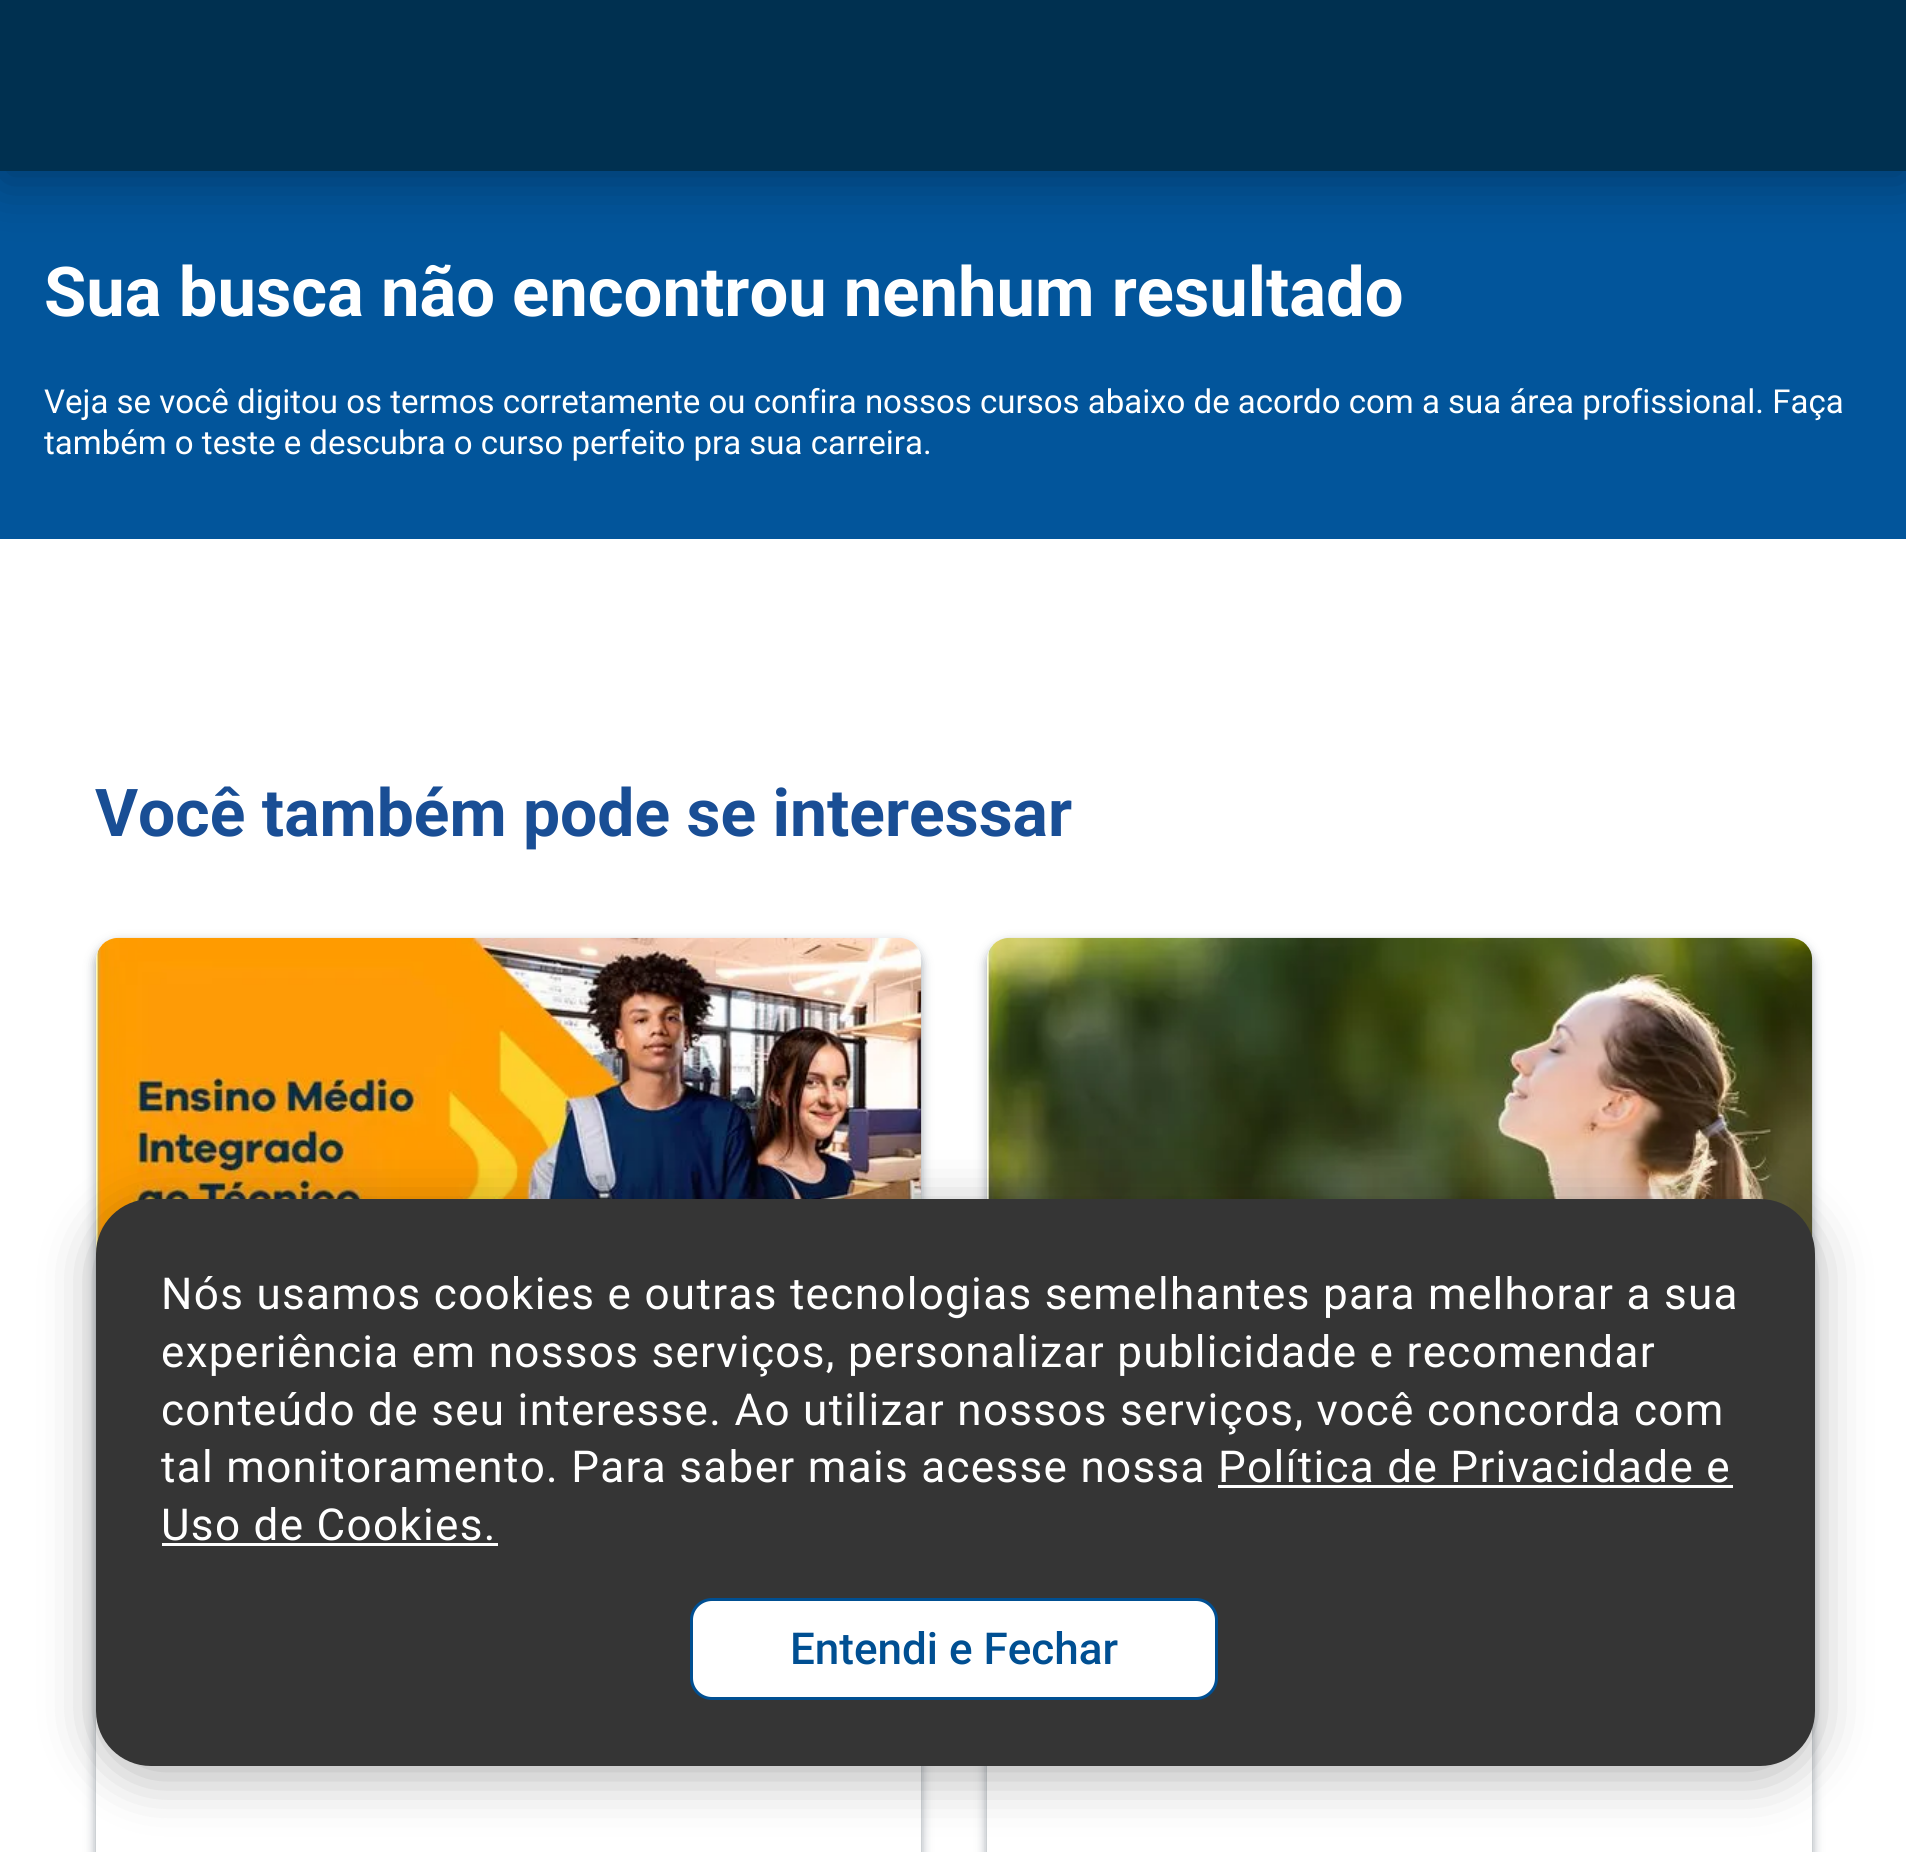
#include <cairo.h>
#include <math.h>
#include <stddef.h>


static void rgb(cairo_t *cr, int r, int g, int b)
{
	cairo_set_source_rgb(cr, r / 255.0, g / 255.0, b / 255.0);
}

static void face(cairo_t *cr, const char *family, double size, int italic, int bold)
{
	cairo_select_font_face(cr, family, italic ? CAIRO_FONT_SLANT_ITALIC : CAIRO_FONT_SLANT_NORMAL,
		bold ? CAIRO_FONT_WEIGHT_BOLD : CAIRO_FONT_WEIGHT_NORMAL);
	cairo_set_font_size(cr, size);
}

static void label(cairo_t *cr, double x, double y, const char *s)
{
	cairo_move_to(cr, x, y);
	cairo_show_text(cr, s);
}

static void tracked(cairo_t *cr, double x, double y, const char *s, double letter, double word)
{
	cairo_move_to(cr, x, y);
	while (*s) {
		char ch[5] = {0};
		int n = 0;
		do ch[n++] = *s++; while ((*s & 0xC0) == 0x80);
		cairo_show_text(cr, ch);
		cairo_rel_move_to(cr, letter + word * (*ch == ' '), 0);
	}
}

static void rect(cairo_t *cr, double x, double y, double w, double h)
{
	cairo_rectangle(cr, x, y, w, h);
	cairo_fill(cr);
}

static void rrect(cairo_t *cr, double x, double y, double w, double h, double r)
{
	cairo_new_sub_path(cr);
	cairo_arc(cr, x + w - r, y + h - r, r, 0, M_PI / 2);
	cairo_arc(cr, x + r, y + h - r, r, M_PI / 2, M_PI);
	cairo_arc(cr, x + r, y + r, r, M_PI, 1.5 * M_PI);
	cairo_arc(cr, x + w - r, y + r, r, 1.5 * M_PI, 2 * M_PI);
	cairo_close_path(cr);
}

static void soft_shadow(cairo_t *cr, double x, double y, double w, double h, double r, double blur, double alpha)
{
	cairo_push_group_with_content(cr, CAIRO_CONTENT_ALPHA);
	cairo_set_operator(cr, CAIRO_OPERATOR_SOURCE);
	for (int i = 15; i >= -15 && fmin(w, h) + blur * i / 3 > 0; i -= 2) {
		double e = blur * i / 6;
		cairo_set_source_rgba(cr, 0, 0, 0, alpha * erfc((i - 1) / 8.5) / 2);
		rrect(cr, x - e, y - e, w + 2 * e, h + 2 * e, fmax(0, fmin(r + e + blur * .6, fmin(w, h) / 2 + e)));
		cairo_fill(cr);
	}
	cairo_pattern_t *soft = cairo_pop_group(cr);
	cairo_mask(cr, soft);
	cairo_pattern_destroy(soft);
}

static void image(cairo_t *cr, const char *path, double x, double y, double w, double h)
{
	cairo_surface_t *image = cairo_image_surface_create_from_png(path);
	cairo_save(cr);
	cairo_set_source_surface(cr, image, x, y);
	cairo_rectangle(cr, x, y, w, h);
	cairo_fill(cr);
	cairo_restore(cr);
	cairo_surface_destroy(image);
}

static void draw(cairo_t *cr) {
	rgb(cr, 255, 255, 255);
	cairo_paint(cr);
	rgb(cr, 2, 85, 155);
	rect(cr, 0, 171, 1906, 368);
	rgb(cr, 0, 0, 0);
	soft_shadow(cr, 0, 11, 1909, 171, 0, 27.5, 0.3);
	rgb(cr, 0, 48, 80);
	rect(cr, 0, 0, 1906, 171);
	face(cr, "Roboto", 68.75, 0, 1);
	rgb(cr, 255, 255, 255);
	label(cr, 44, 316, "Sua busca não encontrou nenhum resultado");
	face(cr, "Roboto", 33, 0, 0);
	label(cr, 44, 413, "Veja se você digitou os termos corretamente ou confira nossos cursos abaixo de acordo com a sua área profissional. Faça");
	label(cr, 44, 454, "também o teste e descubra o curso perfeito pra sua carreira.");
	face(cr, "Roboto", 66, 0, 1);
	rgb(cr, 25, 78, 149);
	label(cr, 95, 836, "Você também pode se interessar");
	rgb(cr, 18, 36, 54);
	soft_shadow(cr, 96, 943, 825, 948, 22, 5.5, 0.44);
	rgb(cr, 255, 255, 255);
	rrect(cr, 96, 938, 825, 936, 22);
	cairo_fill(cr);
	image(cr, "image0.png", 96, 937, 826, 317);
	rgb(cr, 18, 36, 54);
	soft_shadow(cr, 987, 943, 825, 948, 22, 5.5, 0.44);
	rgb(cr, 255, 255, 255);
	rrect(cr, 987, 938, 825, 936, 22);
	cairo_fill(cr);
	image(cr, "image1.png", 987, 937, 826, 303);
	rgb(cr, 0, 0, 0);
	soft_shadow(cr, 96, 1210, 1719, 567, 55, 27.5, 0.3);
	rgb(cr, 53, 53, 53);
	rrect(cr, 96, 1199, 1719, 567, 55);
	cairo_fill(cr);
	face(cr, "Roboto", 44, 0, 0);
	rgb(cr, 255, 255, 255);
	tracked(cr, 161, 1309, "Nós usamos cookies e outras tecnologias semelhantes para melhorar a sua", 1.32, 0);
	tracked(cr, 161, 1367, "experiência em nossos serviços, personalizar publicidade e recomendar", 1.32, 0);
	tracked(cr, 161, 1425, "conteúdo de seu interesse. Ao utilizar nossos serviços, você concorda com", 1.32, 0);
	tracked(cr, 161, 1482, "tal monitoramento. Para saber mais acesse nossa Política de Privacidade e", 1.32, 0);
	tracked(cr, 161, 1540, "Uso de Cookies.", 1.32, 0);
	rect(cr, 1218, 1485, 515, 3);
	rect(cr, 162, 1543, 336, 3);
	rrect(cr, 691.5, 1599.5, 525, 99, 20.5);
	cairo_fill_preserve(cr);
	rgb(cr, 0, 79, 146);
	cairo_set_line_width(cr, 3);
	cairo_stroke(cr);
	face(cr, "Roboto Medium", 44, 0, 0);
	label(cr, 790, 1664, "Entendi e Fechar");
}

int main(void) {
	cairo_surface_t *surface = cairo_image_surface_create(CAIRO_FORMAT_RGB24, 1906, 1852);
	cairo_t *cr = cairo_create(surface);
	cairo_font_options_t *options = cairo_font_options_create();
	cairo_font_options_set_hint_metrics(options, CAIRO_HINT_METRICS_OFF);
	cairo_font_options_set_hint_style(options, CAIRO_HINT_STYLE_NONE);
	cairo_set_font_options(cr, options);
	cairo_set_miter_limit(cr, 4);
	draw(cr);
	cairo_surface_write_to_png(surface, "render.png");
	cairo_font_options_destroy(options);
	cairo_destroy(cr);
	cairo_surface_destroy(surface);
	return 0;
}
